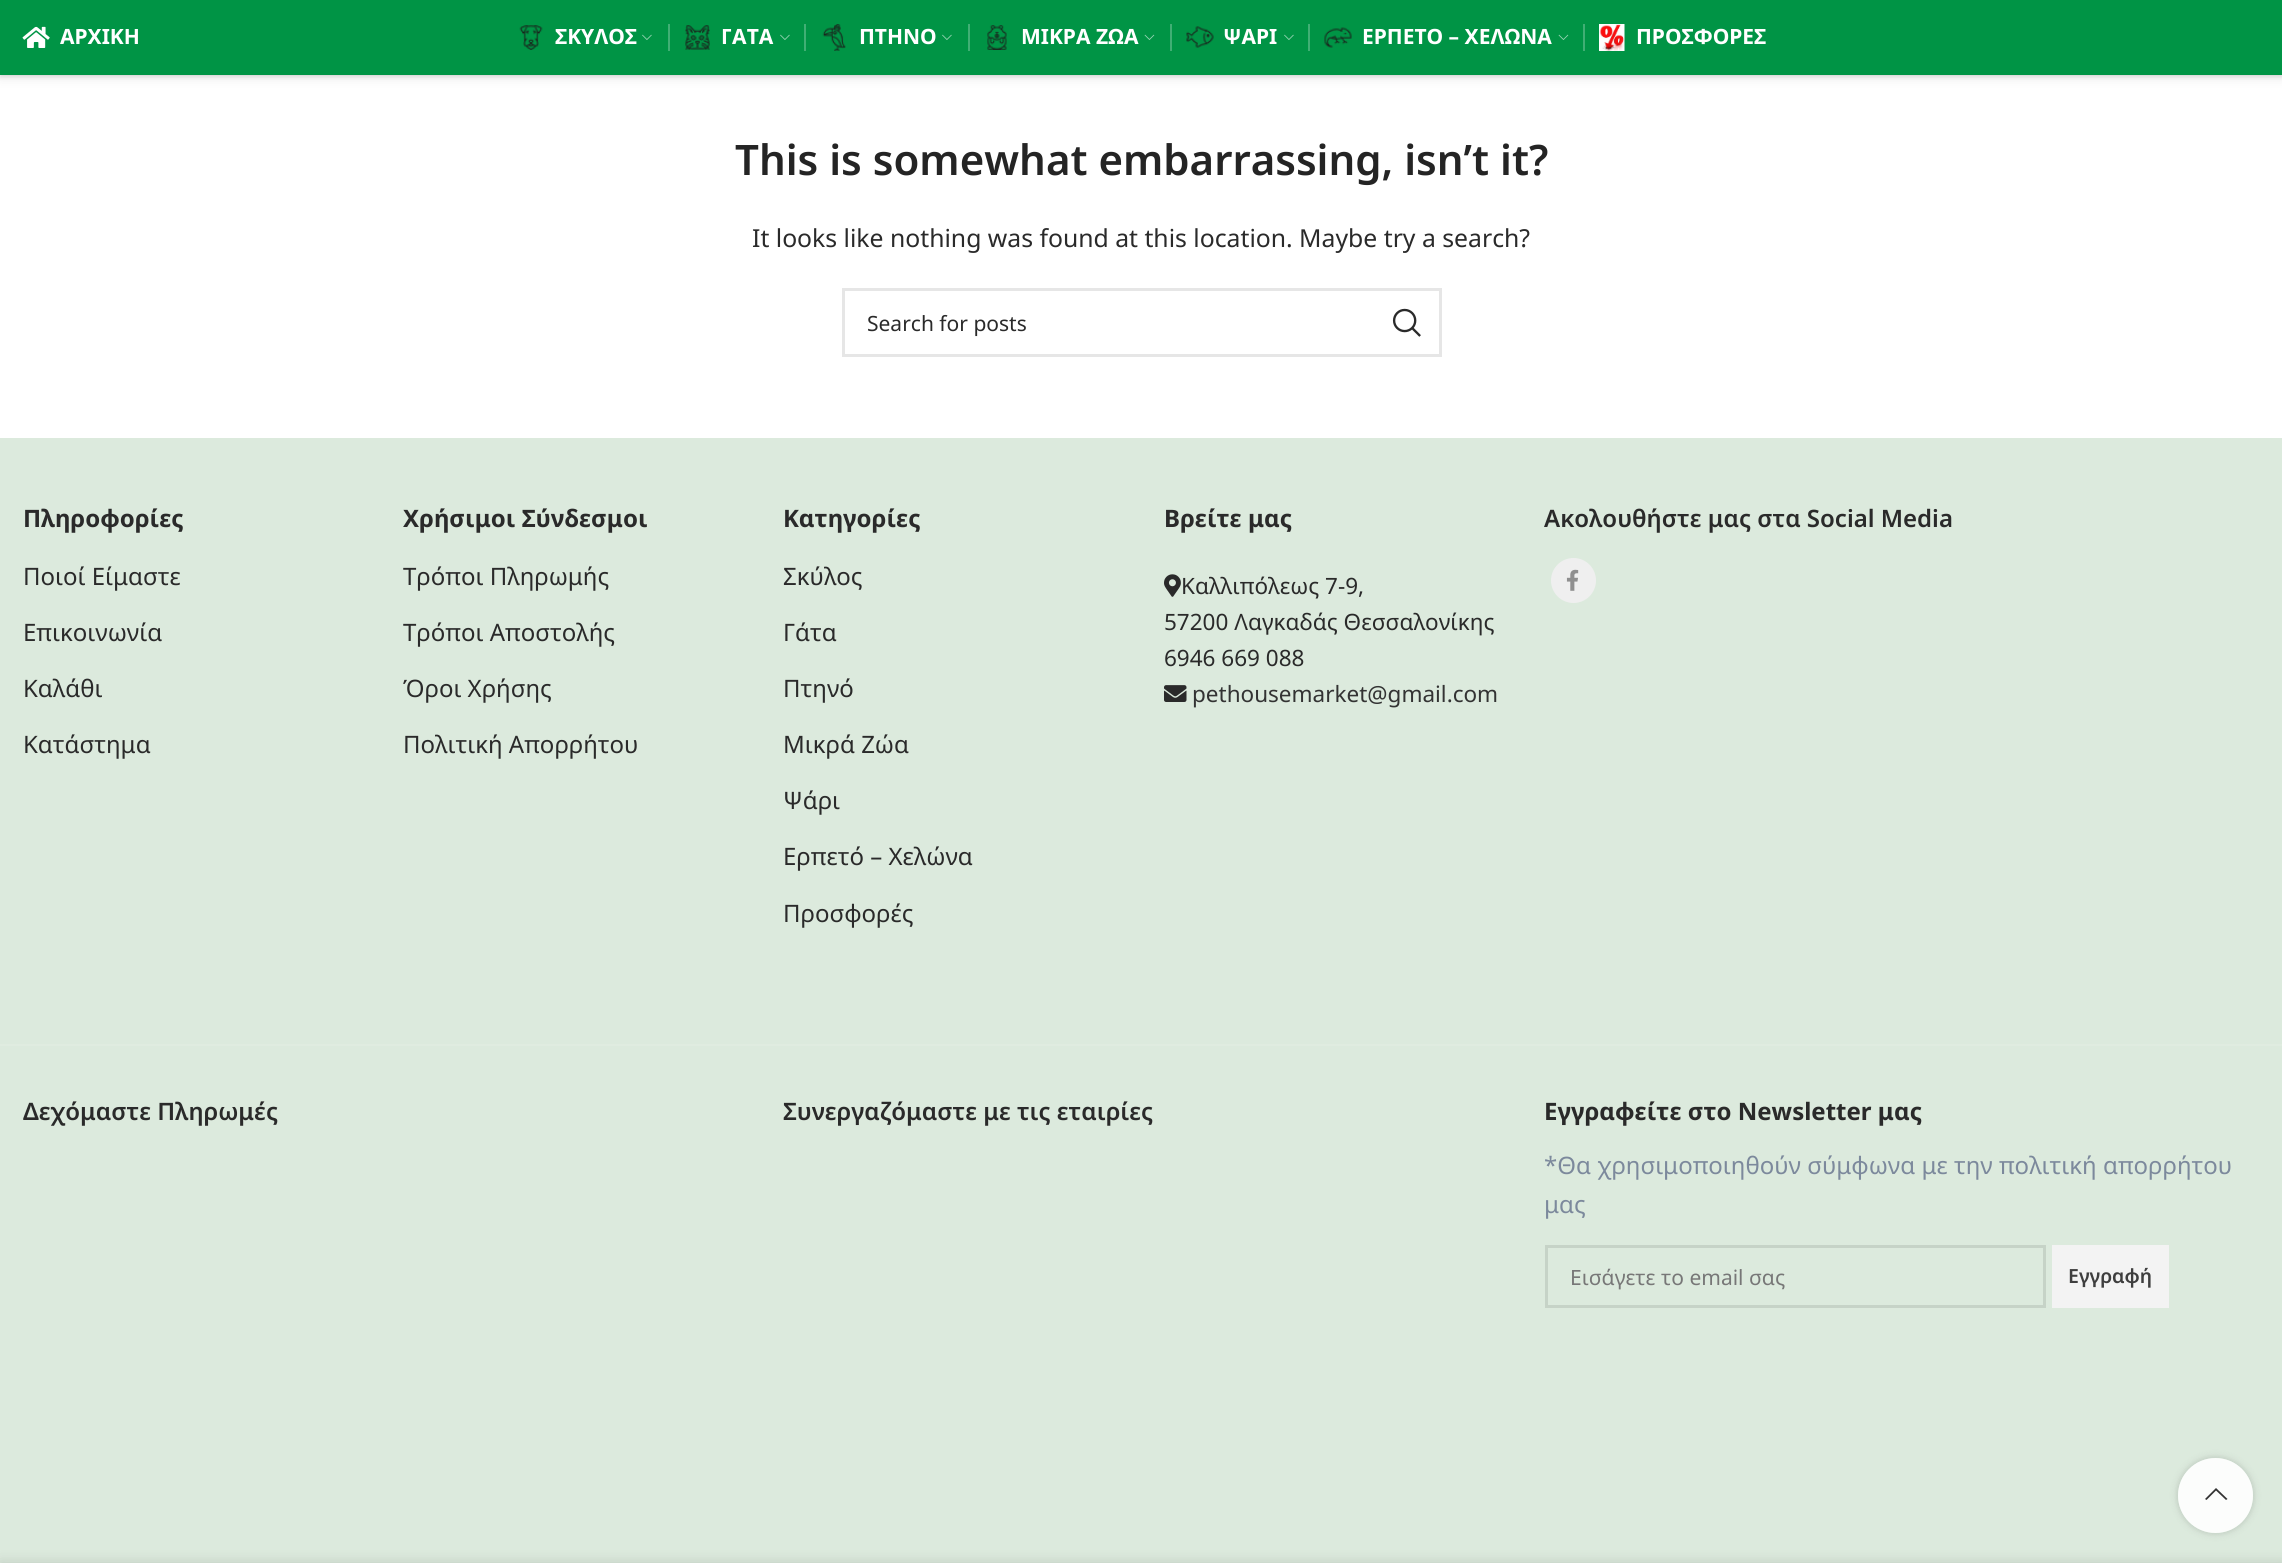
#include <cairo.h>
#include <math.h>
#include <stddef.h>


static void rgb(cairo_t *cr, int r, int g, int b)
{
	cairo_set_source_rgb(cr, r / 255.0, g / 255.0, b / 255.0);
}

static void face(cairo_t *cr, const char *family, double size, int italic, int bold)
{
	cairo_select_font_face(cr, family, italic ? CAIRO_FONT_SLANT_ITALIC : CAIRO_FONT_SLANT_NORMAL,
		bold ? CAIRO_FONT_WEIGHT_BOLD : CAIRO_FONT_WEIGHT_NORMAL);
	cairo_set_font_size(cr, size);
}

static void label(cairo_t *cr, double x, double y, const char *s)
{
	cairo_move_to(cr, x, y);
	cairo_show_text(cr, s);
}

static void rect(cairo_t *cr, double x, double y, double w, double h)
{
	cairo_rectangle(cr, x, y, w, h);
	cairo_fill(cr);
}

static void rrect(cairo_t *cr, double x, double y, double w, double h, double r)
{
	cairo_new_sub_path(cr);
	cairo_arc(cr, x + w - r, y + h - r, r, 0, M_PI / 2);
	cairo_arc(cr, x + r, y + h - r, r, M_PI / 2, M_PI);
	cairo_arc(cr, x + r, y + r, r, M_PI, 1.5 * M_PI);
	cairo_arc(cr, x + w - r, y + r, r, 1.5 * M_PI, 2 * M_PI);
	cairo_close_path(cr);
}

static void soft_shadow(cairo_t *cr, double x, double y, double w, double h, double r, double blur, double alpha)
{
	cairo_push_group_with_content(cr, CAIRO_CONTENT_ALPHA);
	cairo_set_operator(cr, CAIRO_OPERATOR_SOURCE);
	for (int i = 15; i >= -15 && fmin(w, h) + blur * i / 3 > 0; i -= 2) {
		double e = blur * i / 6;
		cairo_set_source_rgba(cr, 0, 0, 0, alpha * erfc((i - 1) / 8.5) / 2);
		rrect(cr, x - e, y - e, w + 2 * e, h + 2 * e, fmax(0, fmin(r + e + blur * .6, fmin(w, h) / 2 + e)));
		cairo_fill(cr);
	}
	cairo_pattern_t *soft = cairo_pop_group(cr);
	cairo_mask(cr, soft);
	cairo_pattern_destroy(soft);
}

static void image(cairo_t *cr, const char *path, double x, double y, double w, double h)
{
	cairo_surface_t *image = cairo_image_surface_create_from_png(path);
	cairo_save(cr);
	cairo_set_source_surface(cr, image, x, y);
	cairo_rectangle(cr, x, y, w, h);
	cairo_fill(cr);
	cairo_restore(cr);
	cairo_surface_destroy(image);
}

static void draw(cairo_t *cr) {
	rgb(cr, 255, 255, 255);
	cairo_paint(cr);
	rgb(cr, 0, 0, 0);
	soft_shadow(cr, 0, 2, 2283, 75, 0, 2, 0.1);
	soft_shadow(cr, 0, 2, 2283, 75, 0, 6, 0.1);
	rgb(cr, 0, 148, 69);
	rect(cr, 0, 0, 2282, 75);
	image(cr, "image0.png", 22, 26, 28, 22);
	face(cr, "Noto Sans", 21, 0, 1);
	rgb(cr, 255, 255, 255);
	label(cr, 60, 44, "ΑΡΧΙΚΗ");
	image(cr, "image1.png", 519, 25, 24, 25);
	label(cr, 555, 44, "ΣΚΥΛΟΣ");
	image(cr, "image2.png", 642, 34, 10, 6);
	rgb(cr, 64, 175, 116);
	rect(cr, 668, 24, 2, 27);
	image(cr, "image3.png", 685, 25, 25, 25);
	rgb(cr, 255, 255, 255);
	label(cr, 721, 44, "ΓΑΤΑ");
	image(cr, "image2.png", 780, 34, 10, 6);
	rgb(cr, 64, 175, 116);
	rect(cr, 804, 24, 2, 27);
	image(cr, "image4.png", 822, 24, 24, 27);
	rgb(cr, 255, 255, 255);
	label(cr, 859, 44, "ΠΤΗΝΟ");
	image(cr, "image2.png", 942, 34, 10, 6);
	rgb(cr, 64, 175, 116);
	rect(cr, 968, 24, 2, 27);
	image(cr, "image5.png", 987, 25, 20, 25);
	rgb(cr, 255, 255, 255);
	label(cr, 1021, 44, "ΜΙΚΡΑ ΖΩΑ");
	image(cr, "image6.png", 1144, 34, 11, 6);
	rgb(cr, 64, 175, 116);
	rect(cr, 1170, 24, 2, 27);
	image(cr, "image7.png", 1186, 26, 28, 22);
	rgb(cr, 255, 255, 255);
	label(cr, 1223, 44, "ΨΑΡΙ");
	image(cr, "image2.png", 1284, 34, 10, 6);
	rgb(cr, 64, 175, 116);
	rect(cr, 1308, 24, 2, 27);
	image(cr, "image8.png", 1324, 27, 28, 21);
	rgb(cr, 255, 255, 255);
	label(cr, 1362, 44, "ΕΡΠΕΤΟ – ΧΕΛΩΝΑ");
	image(cr, "image6.png", 1558, 34, 11, 6);
	rgb(cr, 64, 175, 116);
	rect(cr, 1583, 24, 2, 27);
	image(cr, "image9.png", 1599, 24, 26, 27);
	rgb(cr, 255, 255, 255);
	label(cr, 1636, 44, "ΠΡΟΣΦΟΡΕΣ");
	face(cr, "Noto Sans SemiBold", 42, 0, 0);
	rgb(cr, 36, 36, 36);
	label(cr, 735, 175, "This is somewhat embarrassing, isn’t it?");
	face(cr, "Noto Sans", 24.75, 0, 0);
	rgb(cr, 42, 42, 42);
	label(cr, 752, 247, "It looks like nothing was found at this location. Maybe try a search?");
	cairo_rectangle(cr, 843.5, 289.5, 597, 66);
	rgb(cr, 230, 230, 230);
	cairo_set_line_width(cr, 3);
	cairo_stroke(cr);
	face(cr, "Noto Sans", 21, 0, 0);
	rgb(cr, 42, 42, 42);
	label(cr, 867, 331, "Search for posts");
	image(cr, "image10.png", 1392, 308, 29, 29);
	rgb(cr, 220, 234, 221);
	rect(cr, 0, 438, 2282, 1125);
	rgb(cr, 224, 236, 224);
	rect(cr, 0, 1044, 2282, 2);
	face(cr, "Noto Sans", 24, 0, 1);
	rgb(cr, 42, 42, 42);
	label(cr, 23, 527, "Πληροφορίες");
	face(cr, "Noto Sans", 24, 0, 0);
	label(cr, 23, 585, "Ποιοί Είμαστε");
	label(cr, 23, 641, "Επικοινωνία");
	label(cr, 23, 697, "Καλάθι");
	label(cr, 23, 753, "Κατάστημα");
	face(cr, "Noto Sans", 24, 0, 1);
	label(cr, 403, 527, "Χρήσιμοι Σύνδεσμοι");
	face(cr, "Noto Sans", 24, 0, 0);
	label(cr, 403, 585, "Τρόποι Πληρωμής");
	label(cr, 403, 641, "Τρόποι Αποστολής");
	label(cr, 403, 697, "Όροι Χρήσης");
	label(cr, 403, 753, "Πολιτική Aπορρήτου");
	face(cr, "Noto Sans", 24, 0, 1);
	label(cr, 783, 527, "Κατηγορίες");
	face(cr, "Noto Sans", 24, 0, 0);
	label(cr, 783, 585, "Σκύλος");
	label(cr, 783, 641, "Γάτα");
	label(cr, 783, 697, "Πτηνό");
	label(cr, 783, 753, "Μικρά Ζώα");
	label(cr, 783, 809, "Ψάρι");
	label(cr, 783, 865, "Ερπετό – Χελώνα");
	label(cr, 783, 922, "Προσφορές");
	face(cr, "Noto Sans", 24, 0, 1);
	label(cr, 1164, 527, "Βρείτε μας");
	image(cr, "image11.png", 1164, 574, 17, 23);
	face(cr, "Noto Sans", 22.5, 0, 0);
	label(cr, 1181, 594, "Καλλιπόλεως 7-9,");
	label(cr, 1164, 630, "57200 Λαγκαδάς Θεσσαλονίκης");
	label(cr, 1164, 666, "6946 669 088");
	image(cr, "image12.png", 1164, 685, 23, 17);
	rgb(cr, 51, 51, 51);
	label(cr, 1192, 702, "pethousemarket@gmail.com");
	face(cr, "Noto Sans SemiBold", 24, 0, 0);
	rgb(cr, 42, 42, 42);
	label(cr, 1544, 527, "Ακολουθήστε μας στα Social Media");
	rgb(cr, 239, 239, 239);
	cairo_new_path(cr);
	cairo_arc(cr, 1573.5, 580.5, 22.5, 0, 2 * M_PI);
	cairo_fill(cr);
	image(cr, "image13.png", 1566, 569, 13, 22);
	rgb(cr, 42, 42, 42);
	label(cr, 23, 1120, "Δεχόμαστε Πληρωμές");
	label(cr, 783, 1120, "Συνεργαζόμαστε με τις εταιρίες");
	face(cr, "Noto Sans", 24, 0, 1);
	label(cr, 1544, 1120, "Εγγραφείτε στο Newsletter μας");
	face(cr, "Noto Sans", 24, 0, 0);
	rgb(cr, 124, 137, 156);
	label(cr, 1544, 1174, "*Θα χρησιμοποιηθούν σύμφωνα με την πολιτική απορρήτου");
	label(cr, 1544, 1213, "μας");
	cairo_rectangle(cr, 1546.5, 1246.5, 498, 60);
	rgb(cr, 198, 211, 199);
	cairo_stroke(cr);
	face(cr, "Noto Sans", 21, 0, 0);
	rgb(cr, 119, 119, 119);
	label(cr, 1570, 1285, "Εισάγετε το email σας");
	rgb(cr, 243, 243, 243);
	rect(cr, 2052, 1245, 117, 63);
	face(cr, "Noto Sans SemiBold", 19.5, 0, 0);
	rgb(cr, 62, 62, 62);
	label(cr, 2068, 1283, "Εγγραφή");
	cairo_save(cr);
	cairo_set_fill_rule(cr, CAIRO_FILL_RULE_EVEN_ODD);
	cairo_new_path(cr);
	cairo_move_to(cr, 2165, 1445);
	cairo_line_to(cr, 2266, 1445);
	cairo_line_to(cr, 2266, 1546);
	cairo_line_to(cr, 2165, 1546);
	cairo_close_path(cr);
	cairo_move_to(cr, 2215.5, 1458);
	cairo_curve_to(cr, 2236, 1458, 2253, 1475, 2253, 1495.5);
	cairo_curve_to(cr, 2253, 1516, 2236, 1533, 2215.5, 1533);
	cairo_curve_to(cr, 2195, 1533, 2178, 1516, 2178, 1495.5);
	cairo_curve_to(cr, 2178, 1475, 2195, 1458, 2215.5, 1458);
	cairo_close_path(cr);
	cairo_clip(cr);
	rgb(cr, 0, 0, 0);
	soft_shadow(cr, 2178, 1458, 75, 75, 37.5, 4, 0.17);
	cairo_restore(cr);
	cairo_set_source_rgba(cr, 1, 1, 1, 0.9);
	cairo_arc(cr, 2215.5, 1495.5, 37.5, 0, 2 * M_PI);
	cairo_fill(cr);
	rgb(cr, 51, 51, 51);
	cairo_new_path(cr);
	cairo_move_to(cr, 2226, 1500);
	cairo_line_to(cr, 2227.5, 1499);
	cairo_line_to(cr, 2216, 1488);
	cairo_line_to(cr, 2205, 1499);
	cairo_line_to(cr, 2206.5, 1500);
	cairo_line_to(cr, 2216, 1490.5);
	cairo_close_path(cr);
	cairo_fill(cr);
	rgb(cr, 0, 0, 0);
	soft_shadow(cr, 0, 1563, 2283, 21, 0, 7, 0.14);
}

int main(void) {
	cairo_surface_t *surface = cairo_image_surface_create(CAIRO_FORMAT_RGB24, 2282, 1563);
	cairo_t *cr = cairo_create(surface);
	cairo_font_options_t *options = cairo_font_options_create();
	cairo_font_options_set_hint_metrics(options, CAIRO_HINT_METRICS_OFF);
	cairo_font_options_set_hint_style(options, CAIRO_HINT_STYLE_NONE);
	cairo_set_font_options(cr, options);
	cairo_set_miter_limit(cr, 4);
	draw(cr);
	cairo_surface_write_to_png(surface, "render.png");
	cairo_font_options_destroy(options);
	cairo_destroy(cr);
	cairo_surface_destroy(surface);
	return 0;
}
